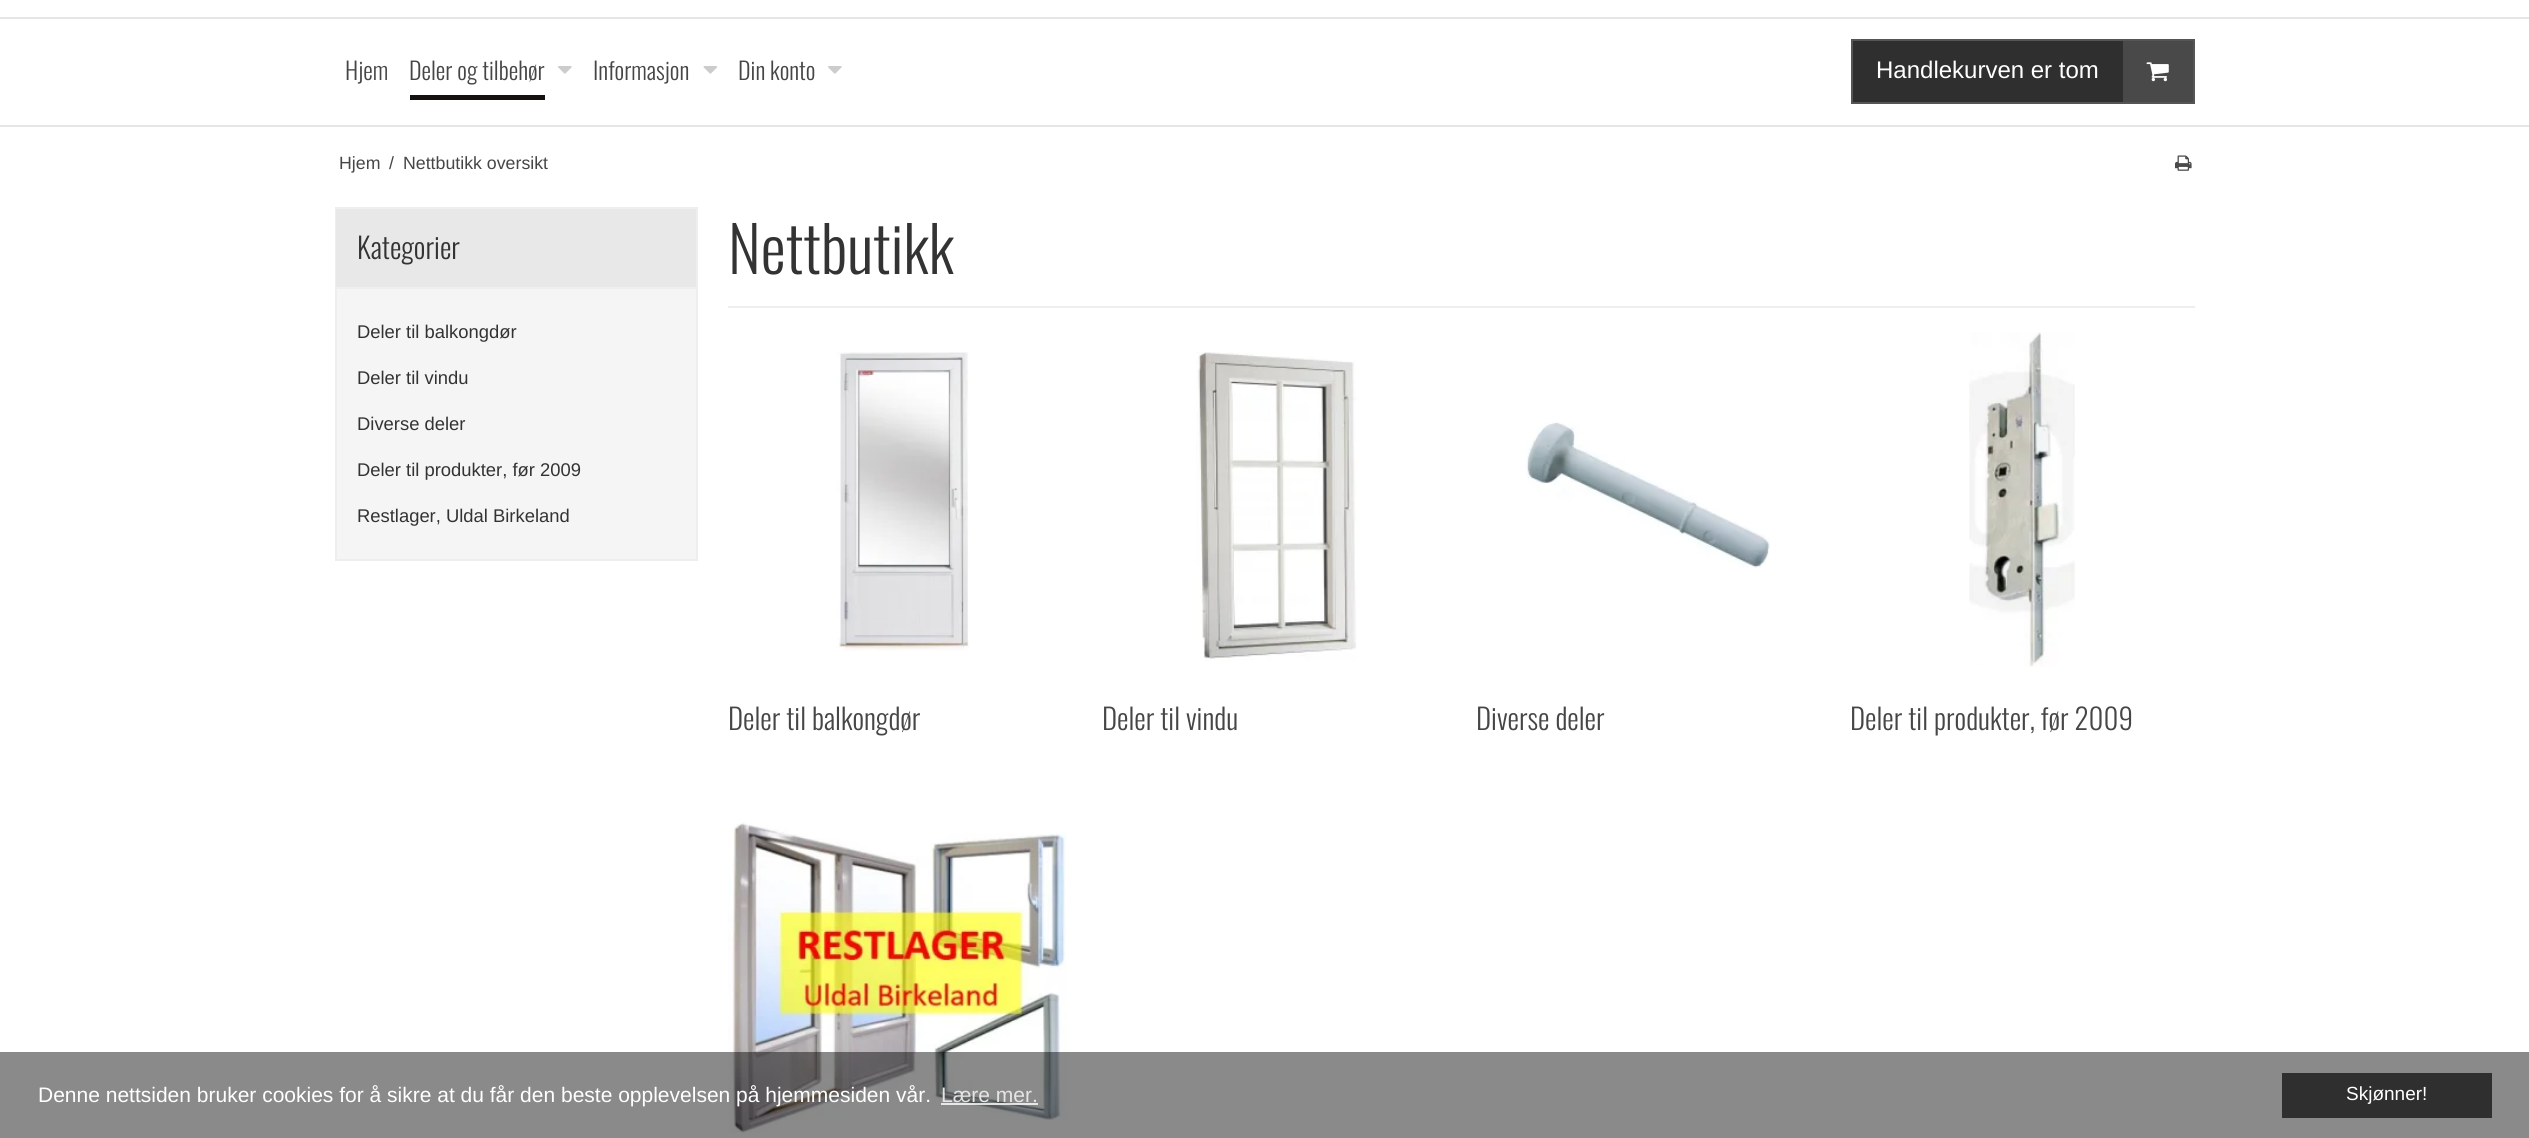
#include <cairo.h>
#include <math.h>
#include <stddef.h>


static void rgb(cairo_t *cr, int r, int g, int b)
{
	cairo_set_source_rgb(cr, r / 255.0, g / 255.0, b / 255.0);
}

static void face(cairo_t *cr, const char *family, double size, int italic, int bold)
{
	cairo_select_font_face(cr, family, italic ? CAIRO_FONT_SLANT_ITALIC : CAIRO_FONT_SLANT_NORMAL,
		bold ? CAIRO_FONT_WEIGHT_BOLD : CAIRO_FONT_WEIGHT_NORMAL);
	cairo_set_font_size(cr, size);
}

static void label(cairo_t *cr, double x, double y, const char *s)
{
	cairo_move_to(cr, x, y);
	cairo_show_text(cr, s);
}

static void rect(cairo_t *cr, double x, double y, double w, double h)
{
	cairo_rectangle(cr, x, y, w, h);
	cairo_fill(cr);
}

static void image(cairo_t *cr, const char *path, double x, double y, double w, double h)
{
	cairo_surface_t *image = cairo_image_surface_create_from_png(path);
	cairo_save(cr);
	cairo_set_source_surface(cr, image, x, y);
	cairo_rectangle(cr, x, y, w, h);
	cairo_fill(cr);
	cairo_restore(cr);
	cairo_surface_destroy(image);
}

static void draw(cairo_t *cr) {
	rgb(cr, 255, 255, 255);
	cairo_paint(cr);
	rgb(cr, 230, 230, 230);
	rect(cr, 0, 17, 2529, 2);
	rect(cr, 0, 125, 2529, 2);
	face(cr, "Oswald Light", 24, 0, 0);
	rgb(cr, 70, 70, 70);
	label(cr, 345, 80, "Hjem");
	rgb(cr, 21, 17, 17);
	rect(cr, 410, 95, 135, 5);
	rgb(cr, 70, 70, 70);
	label(cr, 409, 80, "Deler og tilbehør");
	image(cr, "image0.png", 558, 66, 14, 8);
	label(cr, 593, 80, "Informasjon");
	image(cr, "image1.png", 703, 66, 15, 8);
	label(cr, 738, 80, "Din konto");
	image(cr, "image0.png", 828, 66, 14, 8);
	rgb(cr, 47, 47, 47);
	rect(cr, 1853, 41, 270, 61);
	cairo_rectangle(cr, 1852, 40, 342, 63);
	rgb(cr, 85, 85, 85);
	cairo_stroke(cr);
	face(cr, "Liberation Sans", 24, 0, 0);
	rgb(cr, 255, 255, 255);
	label(cr, 1876, 78, "Handlekurven er tom");
	rgb(cr, 73, 73, 73);
	rect(cr, 2123, 41, 70, 61);
	image(cr, "image2.png", 2146, 62, 23, 20);
	face(cr, "Liberation Sans", 17.75, 0, 0);
	rgb(cr, 70, 70, 70);
	label(cr, 339, 169, "Hjem");
	label(cr, 389, 169, "/");
	label(cr, 403, 169, "Nettbutikk oversikt");
	image(cr, "image3.png", 2175, 155, 17, 16);
	rgb(cr, 245, 245, 245);
	rect(cr, 337, 289, 359, 270);
	cairo_rectangle(cr, 336, 208, 361, 352);
	rgb(cr, 238, 238, 238);
	cairo_stroke(cr);
	rgb(cr, 232, 232, 232);
	rect(cr, 336, 209, 360, 78);
	rgb(cr, 238, 238, 238);
	rect(cr, 336, 287, 360, 2);
	face(cr, "Oswald Light", 28.9, 0, 0);
	rgb(cr, 51, 51, 51);
	label(cr, 357, 259, "Kategorier");
	face(cr, "Liberation Sans", 18.4, 0, 0);
	label(cr, 357, 338, "Deler til balkongdør");
	label(cr, 357, 384, "Deler til vindu");
	label(cr, 357, 430, "Diverse deler");
	label(cr, 357, 476, "Deler til produkter, før 2009");
	label(cr, 357, 522, "Restlager, Uldal Birkeland");
	rgb(cr, 238, 238, 238);
	rect(cr, 728, 306, 1467, 2);
	face(cr, "Oswald Light", 63, 0, 0);
	rgb(cr, 51, 51, 51);
	label(cr, 728, 274, "Nettbutikk");
	image(cr, "image4.png", 836, 352, 133, 299);
	face(cr, "Oswald Light", 28.9, 0, 0);
	rgb(cr, 70, 70, 70);
	label(cr, 728, 730, "Deler til balkongdør");
	image(cr, "image5.png", 1196, 352, 161, 309);
	label(cr, 1102, 730, "Deler til vindu");
	image(cr, "image6.png", 1525, 422, 245, 146);
	label(cr, 1476, 730, "Diverse deler");
	image(cr, "image7.png", 1969, 332, 106, 335);
	label(cr, 1850, 730, "Deler til produkter, før 2009");
	image(cr, "image8.png", 728, 822, 339, 311);
	cairo_set_source_rgba(cr, 0, 0, 0, 0.46);
	rect(cr, 0, 1052, 2529, 86);
	face(cr, "Liberation Sans", 21, 0, 0);
	rgb(cr, 255, 255, 255);
	label(cr, 38, 1102, "Denne nettsiden bruker cookies for å sikre at du får den beste opplevelsen på hjemmesiden vår.");
	rgb(cr, 229, 229, 229);
	label(cr, 941, 1102, "Lære mer.");
	cairo_set_source_rgba(cr, 1, 1, 1, 0.8);
	rect(cr, 941, 1103, 97, 2);
	rgb(cr, 47, 47, 47);
	rect(cr, 2282, 1073, 210, 45);
	face(cr, "Liberation Sans", 19, 0, 0);
	rgb(cr, 255, 255, 255);
	label(cr, 2346, 1100, "Skjønner!");
}

int main(void) {
	cairo_surface_t *surface = cairo_image_surface_create(CAIRO_FORMAT_RGB24, 2529, 1138);
	cairo_t *cr = cairo_create(surface);
	cairo_font_options_t *options = cairo_font_options_create();
	cairo_font_options_set_hint_metrics(options, CAIRO_HINT_METRICS_OFF);
	cairo_font_options_set_hint_style(options, CAIRO_HINT_STYLE_NONE);
	cairo_set_font_options(cr, options);
	cairo_set_miter_limit(cr, 4);
	draw(cr);
	cairo_surface_write_to_png(surface, "render.png");
	cairo_font_options_destroy(options);
	cairo_destroy(cr);
	cairo_surface_destroy(surface);
	return 0;
}
